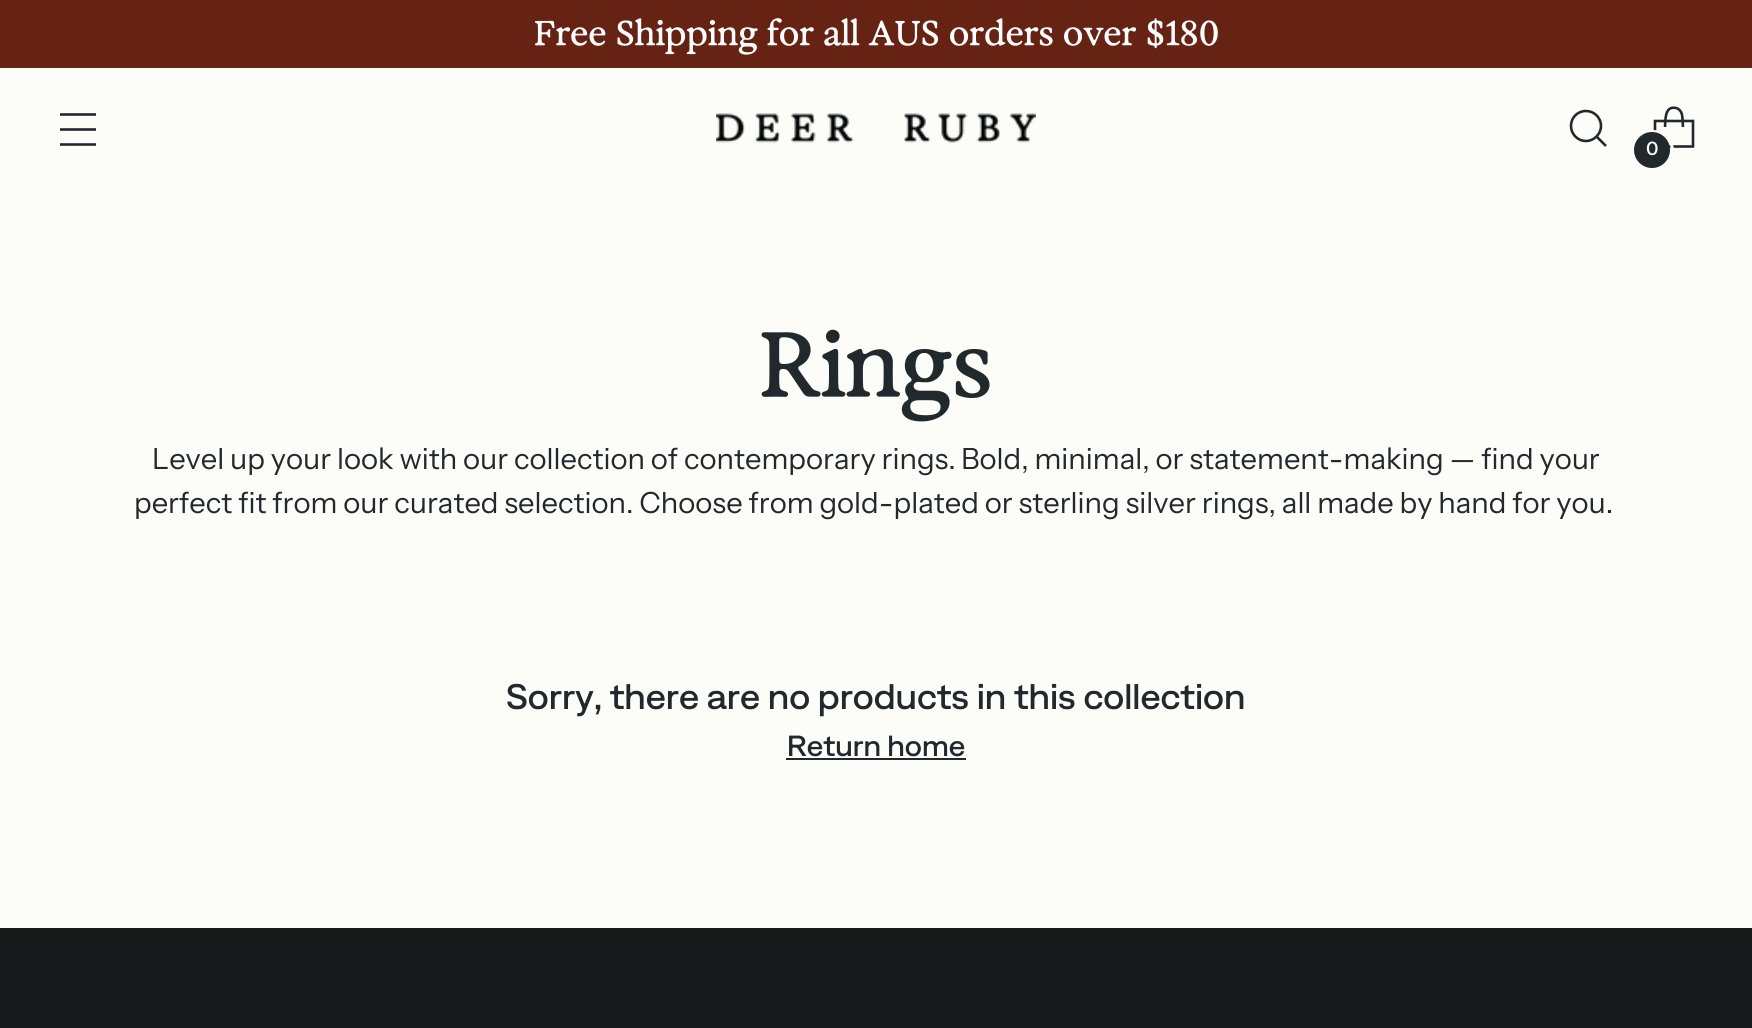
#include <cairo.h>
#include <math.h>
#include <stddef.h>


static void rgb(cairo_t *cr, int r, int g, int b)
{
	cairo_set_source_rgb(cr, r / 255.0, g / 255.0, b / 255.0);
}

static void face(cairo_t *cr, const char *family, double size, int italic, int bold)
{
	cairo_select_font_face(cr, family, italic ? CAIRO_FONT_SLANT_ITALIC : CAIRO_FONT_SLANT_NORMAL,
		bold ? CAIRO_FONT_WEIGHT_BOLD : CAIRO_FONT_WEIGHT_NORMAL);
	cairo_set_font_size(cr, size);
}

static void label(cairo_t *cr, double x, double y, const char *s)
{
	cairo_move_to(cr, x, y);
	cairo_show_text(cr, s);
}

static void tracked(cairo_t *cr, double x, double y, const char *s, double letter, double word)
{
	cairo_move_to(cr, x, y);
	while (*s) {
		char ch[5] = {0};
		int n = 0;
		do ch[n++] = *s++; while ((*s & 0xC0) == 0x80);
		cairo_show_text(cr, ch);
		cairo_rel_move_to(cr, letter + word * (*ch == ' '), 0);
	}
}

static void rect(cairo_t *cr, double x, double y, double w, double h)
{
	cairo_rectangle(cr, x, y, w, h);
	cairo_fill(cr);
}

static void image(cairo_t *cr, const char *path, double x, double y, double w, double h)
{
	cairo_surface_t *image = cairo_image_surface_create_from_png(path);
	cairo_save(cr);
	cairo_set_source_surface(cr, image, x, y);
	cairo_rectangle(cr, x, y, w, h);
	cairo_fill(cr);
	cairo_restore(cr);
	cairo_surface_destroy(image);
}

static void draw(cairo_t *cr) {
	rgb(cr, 252, 252, 249);
	cairo_paint(cr);
	rgb(cr, 102, 35, 20);
	rect(cr, 0, 0, 1752, 68);
	face(cr, "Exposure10", 34, 0, 0);
	rgb(cr, 255, 255, 255);
	label(cr, 534, 45, "Free Shipping for all AUS orders over $180");
	cairo_new_path(cr);
	cairo_move_to(cr, 60, 129.5);
	cairo_line_to(cr, 96, 129.5);
	cairo_move_to(cr, 60, 114.5);
	cairo_line_to(cr, 96, 114.5);
	cairo_move_to(cr, 60, 144.5);
	cairo_line_to(cr, 96, 144.5);
	rgb(cr, 34, 41, 45);
	cairo_set_line_width(cr, 2.6);
	cairo_stroke(cr);
	image(cr, "image0.png", 716, 113, 320, 30);
	cairo_new_path(cr);
	cairo_move_to(cr, 1586, 141);
	cairo_curve_to(cr, 1594, 141, 1601, 134, 1601, 126);
	cairo_curve_to(cr, 1601, 117.5, 1594, 111, 1586, 111);
	cairo_curve_to(cr, 1577.5, 111, 1571, 117.5, 1571, 126);
	cairo_curve_to(cr, 1571, 134, 1577.5, 141, 1586, 141);
	cairo_close_path(cr);
	cairo_set_line_cap(cr, CAIRO_LINE_CAP_ROUND);
	cairo_stroke(cr);
	cairo_new_path(cr);
	cairo_move_to(cr, 1596.5, 136.5);
	cairo_line_to(cr, 1606, 146);
	cairo_set_line_cap(cr, CAIRO_LINE_CAP_BUTT);
	cairo_stroke(cr);
	cairo_new_path(cr);
	cairo_move_to(cr, 1683, 127);
	cairo_curve_to(cr, 1682.5, 122.5, 1683, 117.5, 1681.5, 113);
	cairo_curve_to(cr, 1680.5, 110.5, 1678.5, 108.5, 1676, 108);
	cairo_curve_to(cr, 1664.5, 105.5, 1665.5, 120, 1665, 127);
	cairo_set_line_join(cr, CAIRO_LINE_JOIN_BEVEL);
	cairo_stroke(cr);
	cairo_new_path(cr);
	cairo_move_to(cr, 1693, 146.5);
	cairo_line_to(cr, 1693, 121);
	cairo_line_to(cr, 1655, 121);
	cairo_line_to(cr, 1655, 146.5);
	cairo_close_path(cr);
	cairo_set_line_join(cr, CAIRO_LINE_JOIN_MITER);
	cairo_stroke(cr);
	cairo_arc(cr, 1653, 151, 19.5, 0, 2 * M_PI);
	rgb(cr, 252, 252, 249);
	cairo_set_line_width(cr, 3);
	cairo_stroke(cr);
	rgb(cr, 34, 41, 45);
	cairo_arc(cr, 1652, 150, 18, 0, 2 * M_PI);
	cairo_fill(cr);
	face(cr, "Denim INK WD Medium", 19, 0, 0);
	rgb(cr, 252, 252, 249);
	label(cr, 1646, 155, "0");
	face(cr, "Exposure10", 90, 0, 0);
	rgb(cr, 34, 41, 45);
	tracked(cr, 759, 396, "Rings", -0.5, 0);
	face(cr, "Instrument Sans", 29.15, 0, 0);
	label(cr, 152, 469, "Level up your look with our collection of contemporary rings.");
	label(cr, 961, 469, "Bold, minimal, or statement-making — find your");
	label(cr, 134, 513, "perfect fit from our curated selection. Choose from gold-plated or sterling silver rings, all made by hand for you.");
	face(cr, "Denim INK WD Medium", 35.6, 0, 0);
	label(cr, 506, 709, "Sorry, there are no products in this collection");
	face(cr, "Denim INK WD Medium", 29.15, 0, 0);
	label(cr, 787, 756, "Return home");
	rect(cr, 786, 758, 180, 2);
	rgb(cr, 23, 24, 25);
	rect(cr, 0, 928, 1752, 100);
}

int main(void) {
	cairo_surface_t *surface = cairo_image_surface_create(CAIRO_FORMAT_RGB24, 1752, 1028);
	cairo_t *cr = cairo_create(surface);
	cairo_font_options_t *options = cairo_font_options_create();
	cairo_font_options_set_hint_metrics(options, CAIRO_HINT_METRICS_OFF);
	cairo_font_options_set_hint_style(options, CAIRO_HINT_STYLE_NONE);
	cairo_set_font_options(cr, options);
	cairo_set_miter_limit(cr, 4);
	draw(cr);
	cairo_surface_write_to_png(surface, "render.png");
	cairo_font_options_destroy(options);
	cairo_destroy(cr);
	cairo_surface_destroy(surface);
	return 0;
}
